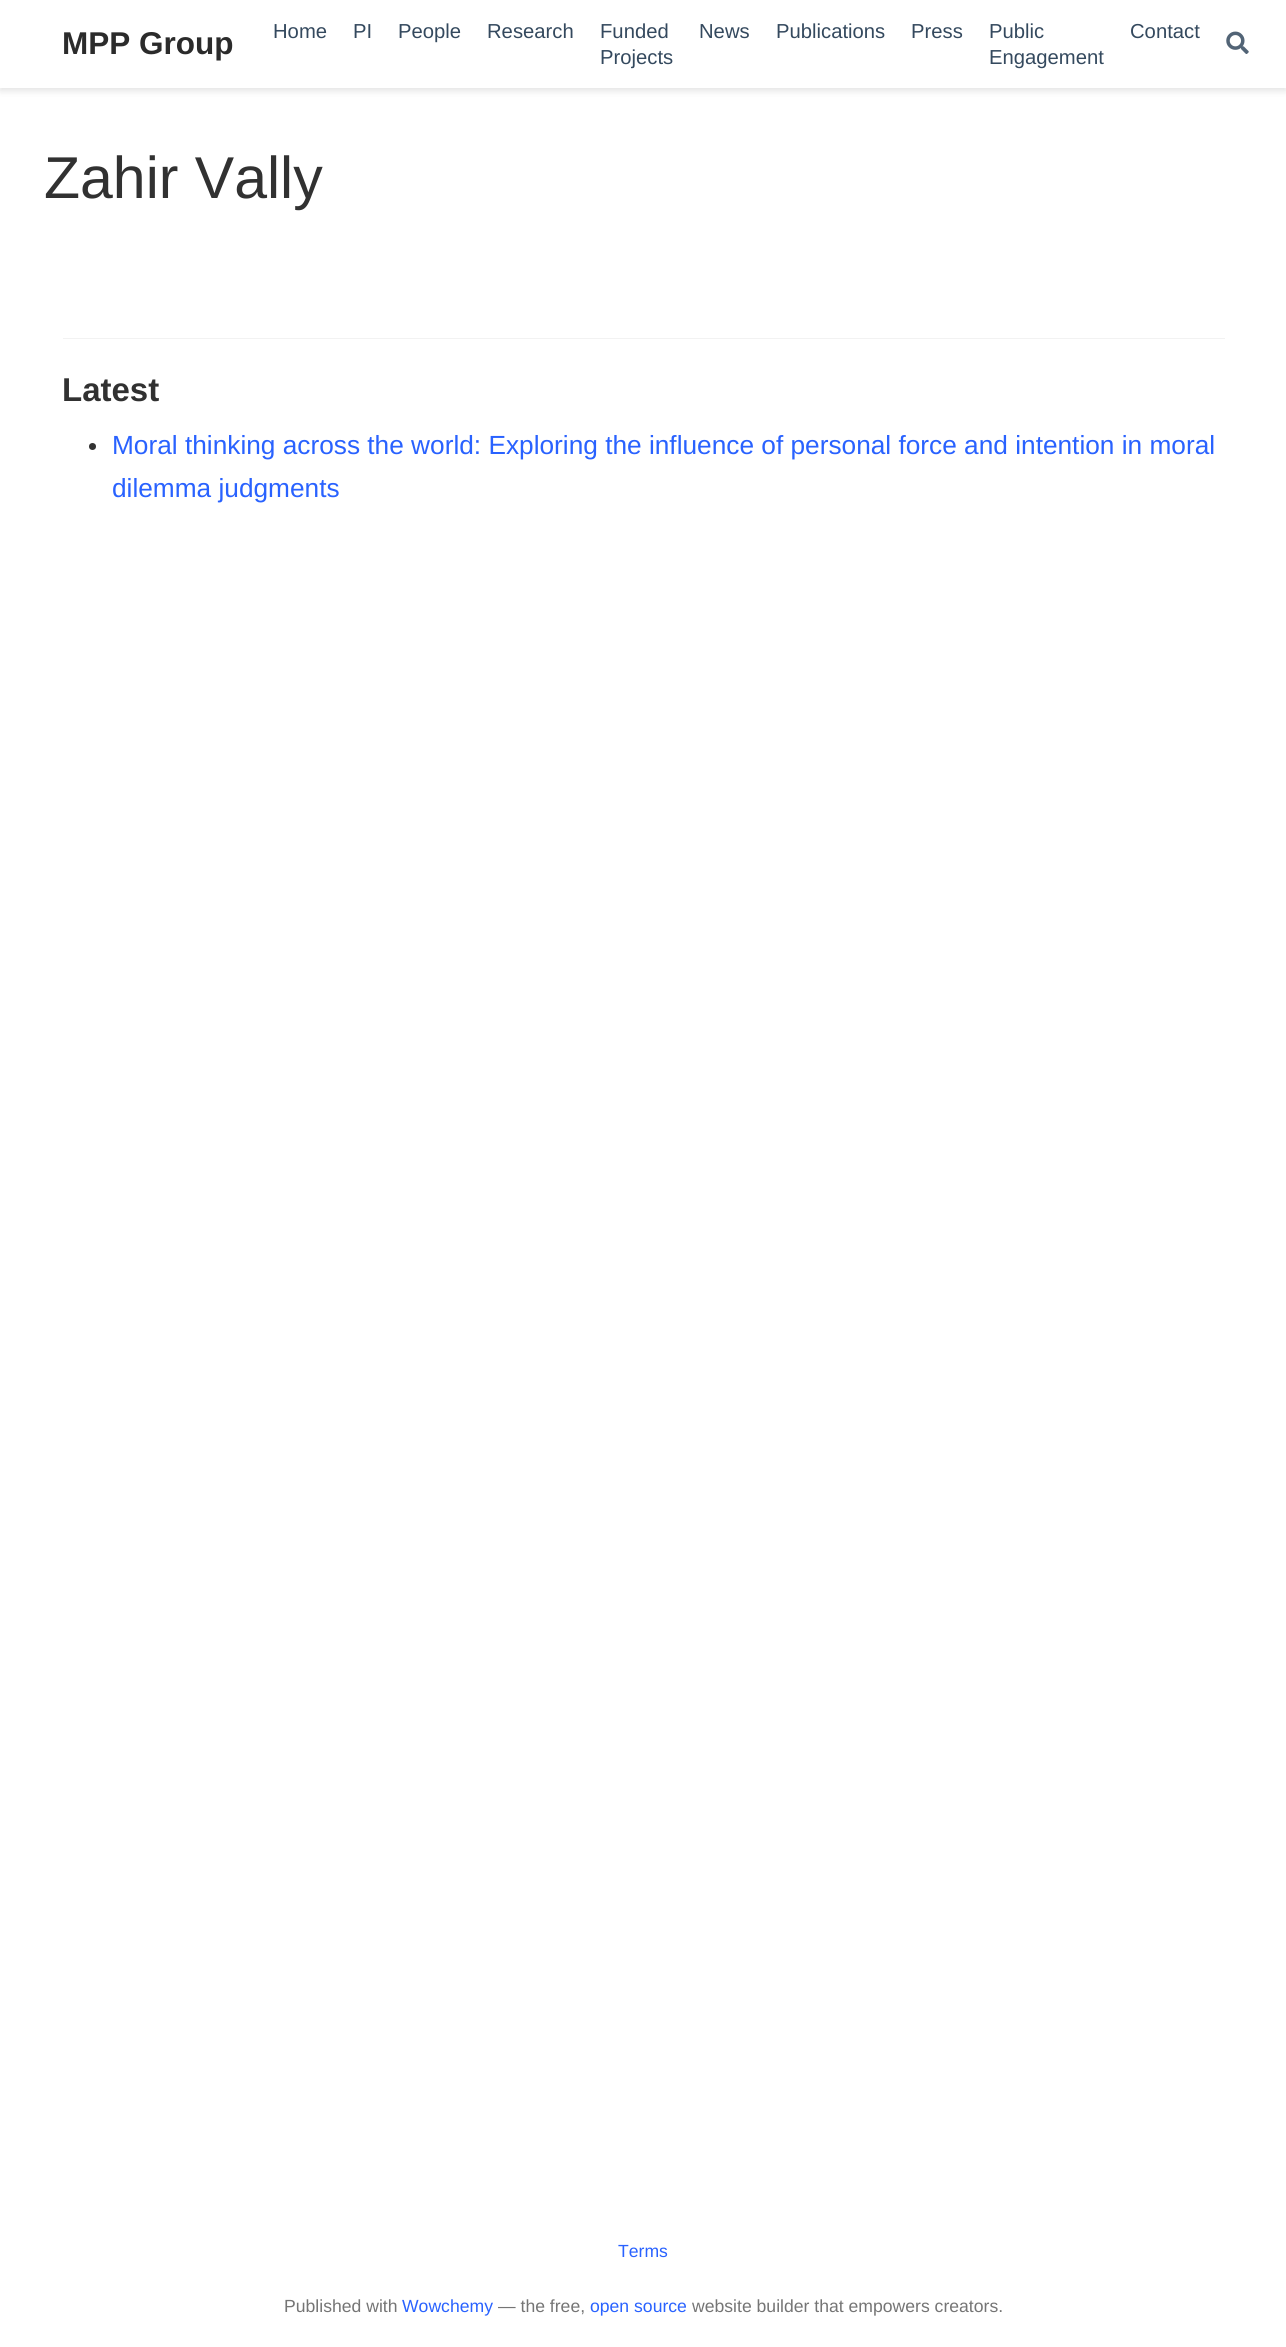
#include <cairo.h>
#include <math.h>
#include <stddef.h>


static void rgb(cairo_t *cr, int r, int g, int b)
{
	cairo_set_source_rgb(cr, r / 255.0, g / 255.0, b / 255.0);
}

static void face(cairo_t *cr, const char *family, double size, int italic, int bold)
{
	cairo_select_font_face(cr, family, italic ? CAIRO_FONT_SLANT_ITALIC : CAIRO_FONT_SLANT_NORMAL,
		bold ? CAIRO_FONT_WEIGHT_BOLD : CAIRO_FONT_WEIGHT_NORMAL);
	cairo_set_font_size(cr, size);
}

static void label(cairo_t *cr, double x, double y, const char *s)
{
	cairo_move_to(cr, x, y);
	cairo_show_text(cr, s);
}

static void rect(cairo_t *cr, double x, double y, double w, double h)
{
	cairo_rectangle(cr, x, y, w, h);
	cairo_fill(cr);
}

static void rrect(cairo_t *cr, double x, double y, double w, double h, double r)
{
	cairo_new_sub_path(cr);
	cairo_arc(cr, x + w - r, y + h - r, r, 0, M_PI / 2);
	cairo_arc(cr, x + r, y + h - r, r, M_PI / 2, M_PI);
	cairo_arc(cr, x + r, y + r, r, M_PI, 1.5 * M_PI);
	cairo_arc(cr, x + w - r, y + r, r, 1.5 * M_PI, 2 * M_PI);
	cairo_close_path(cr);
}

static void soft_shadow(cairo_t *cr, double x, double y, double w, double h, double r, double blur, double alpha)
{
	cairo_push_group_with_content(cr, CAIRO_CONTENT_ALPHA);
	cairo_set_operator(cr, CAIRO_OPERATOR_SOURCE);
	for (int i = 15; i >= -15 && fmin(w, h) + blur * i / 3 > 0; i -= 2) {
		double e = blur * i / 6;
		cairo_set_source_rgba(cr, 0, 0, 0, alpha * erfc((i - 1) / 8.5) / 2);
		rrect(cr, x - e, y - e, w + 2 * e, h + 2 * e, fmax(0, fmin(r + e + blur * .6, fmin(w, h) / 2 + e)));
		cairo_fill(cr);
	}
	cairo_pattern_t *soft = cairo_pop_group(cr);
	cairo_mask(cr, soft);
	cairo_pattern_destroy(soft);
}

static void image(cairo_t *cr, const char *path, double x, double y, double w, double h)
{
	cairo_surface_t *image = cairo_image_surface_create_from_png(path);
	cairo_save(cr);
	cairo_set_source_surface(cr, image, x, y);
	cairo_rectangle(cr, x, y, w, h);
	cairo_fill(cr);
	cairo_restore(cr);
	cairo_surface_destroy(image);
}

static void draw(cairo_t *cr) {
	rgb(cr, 255, 255, 255);
	cairo_paint(cr);
	rgb(cr, 0, 0, 0);
	soft_shadow(cr, 0, 4, 1286, 87, 0, 3.5, 0.11);
	rgb(cr, 255, 255, 255);
	rect(cr, 0, 0, 1286, 88);
	face(cr, "Liberation Sans", 31.5, 0, 1);
	rgb(cr, 43, 43, 43);
	label(cr, 62, 54, "MPP Group");
	face(cr, "Liberation Sans", 20.25, 0, 0);
	rgb(cr, 52, 73, 94);
	label(cr, 273, 38, "Home");
	label(cr, 353, 38, "PI");
	label(cr, 398, 38, "People");
	label(cr, 487, 38, "Research");
	label(cr, 600, 38, "Funded");
	label(cr, 600, 64, "Projects");
	label(cr, 699, 38, "News");
	label(cr, 776, 38, "Publications");
	label(cr, 911, 38, "Press");
	label(cr, 989, 38, "Public");
	label(cr, 989, 64, "Engagement");
	label(cr, 1130, 38, "Contact");
	image(cr, "image0.png", 1226, 31, 23, 23);
	face(cr, "Liberation Sans", 59, 0, 0);
	rgb(cr, 49, 49, 49);
	label(cr, 44, 198, "Zahir Vally");
	rgb(cr, 242, 242, 242);
	rect(cr, 63, 338, 1162, 1);
	face(cr, "Liberation Sans", 33, 0, 1);
	rgb(cr, 49, 49, 49);
	label(cr, 62, 401, "Latest");
	rgb(cr, 51, 51, 51);
	cairo_new_path(cr);
	cairo_arc(cr, 92.5, 446.5, 3.5, 0, 2 * M_PI);
	cairo_fill(cr);
	face(cr, "Liberation Sans", 26.25, 0, 0);
	rgb(cr, 41, 98, 255);
	label(cr, 112, 454, "Moral thinking across the world: Exploring the influence of personal force and intention in moral");
	label(cr, 112, 497, "dilemma judgments");
	face(cr, "Liberation Sans", 17.6, 0, 0);
	label(cr, 618, 2257, "Terms");
	rgb(cr, 117, 117, 117);
	label(cr, 284, 2312, "Published with");
	rgb(cr, 41, 98, 255);
	label(cr, 402, 2312, "Wowchemy");
	rgb(cr, 117, 117, 117);
	label(cr, 498, 2312, "— the free,");
	rgb(cr, 41, 98, 255);
	label(cr, 590, 2312, "open source");
	rgb(cr, 117, 117, 117);
	label(cr, 692, 2312, "website builder that empowers creators.");
}

int main(void) {
	cairo_surface_t *surface = cairo_image_surface_create(CAIRO_FORMAT_RGB24, 1286, 2347);
	cairo_t *cr = cairo_create(surface);
	cairo_font_options_t *options = cairo_font_options_create();
	cairo_font_options_set_hint_metrics(options, CAIRO_HINT_METRICS_OFF);
	cairo_font_options_set_hint_style(options, CAIRO_HINT_STYLE_NONE);
	cairo_set_font_options(cr, options);
	cairo_set_miter_limit(cr, 4);
	draw(cr);
	cairo_surface_write_to_png(surface, "render.png");
	cairo_font_options_destroy(options);
	cairo_destroy(cr);
	cairo_surface_destroy(surface);
	return 0;
}
